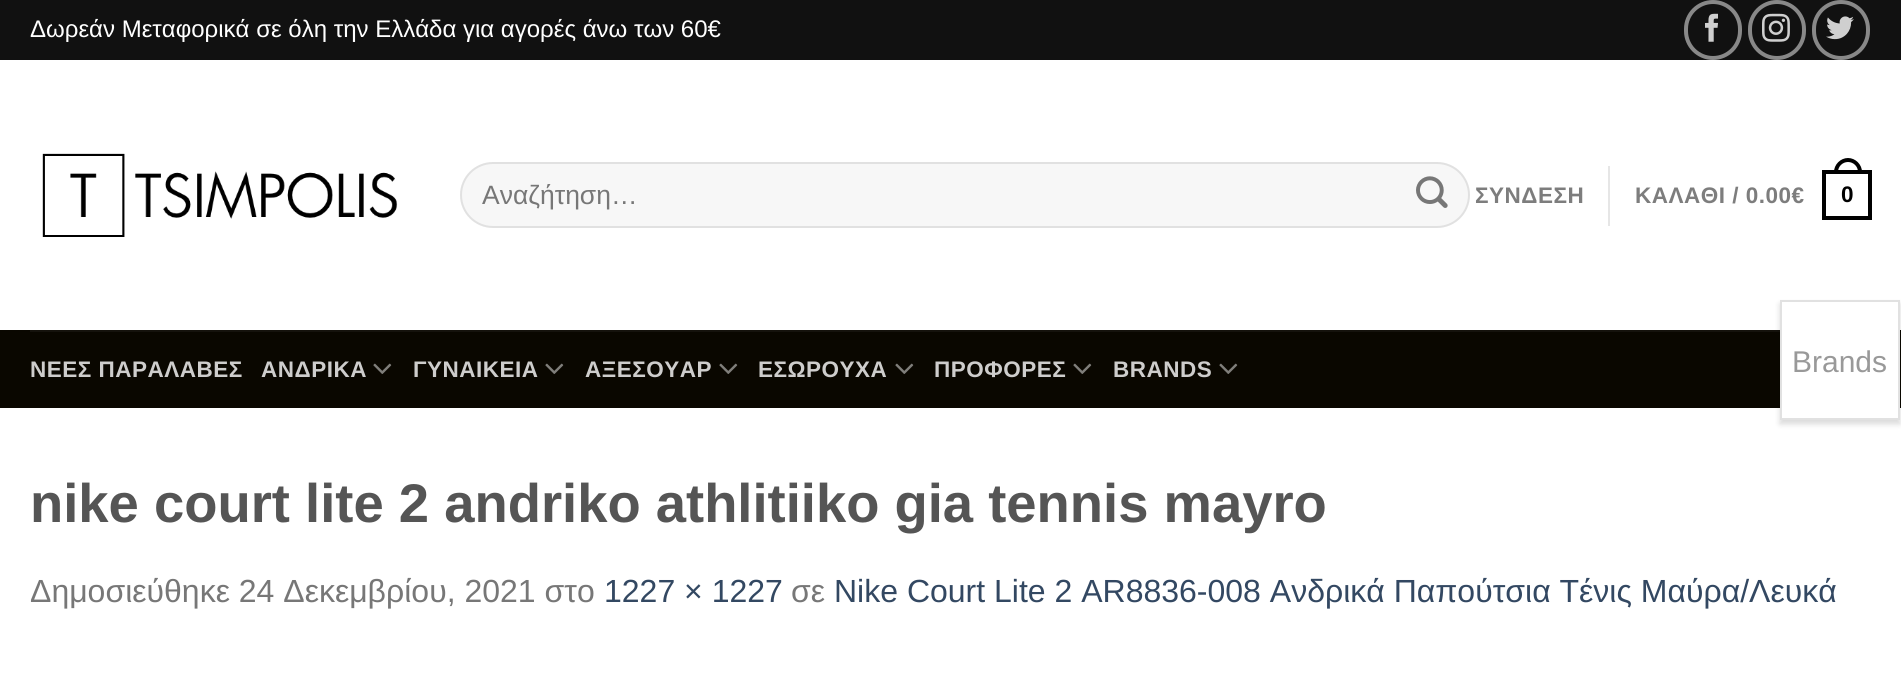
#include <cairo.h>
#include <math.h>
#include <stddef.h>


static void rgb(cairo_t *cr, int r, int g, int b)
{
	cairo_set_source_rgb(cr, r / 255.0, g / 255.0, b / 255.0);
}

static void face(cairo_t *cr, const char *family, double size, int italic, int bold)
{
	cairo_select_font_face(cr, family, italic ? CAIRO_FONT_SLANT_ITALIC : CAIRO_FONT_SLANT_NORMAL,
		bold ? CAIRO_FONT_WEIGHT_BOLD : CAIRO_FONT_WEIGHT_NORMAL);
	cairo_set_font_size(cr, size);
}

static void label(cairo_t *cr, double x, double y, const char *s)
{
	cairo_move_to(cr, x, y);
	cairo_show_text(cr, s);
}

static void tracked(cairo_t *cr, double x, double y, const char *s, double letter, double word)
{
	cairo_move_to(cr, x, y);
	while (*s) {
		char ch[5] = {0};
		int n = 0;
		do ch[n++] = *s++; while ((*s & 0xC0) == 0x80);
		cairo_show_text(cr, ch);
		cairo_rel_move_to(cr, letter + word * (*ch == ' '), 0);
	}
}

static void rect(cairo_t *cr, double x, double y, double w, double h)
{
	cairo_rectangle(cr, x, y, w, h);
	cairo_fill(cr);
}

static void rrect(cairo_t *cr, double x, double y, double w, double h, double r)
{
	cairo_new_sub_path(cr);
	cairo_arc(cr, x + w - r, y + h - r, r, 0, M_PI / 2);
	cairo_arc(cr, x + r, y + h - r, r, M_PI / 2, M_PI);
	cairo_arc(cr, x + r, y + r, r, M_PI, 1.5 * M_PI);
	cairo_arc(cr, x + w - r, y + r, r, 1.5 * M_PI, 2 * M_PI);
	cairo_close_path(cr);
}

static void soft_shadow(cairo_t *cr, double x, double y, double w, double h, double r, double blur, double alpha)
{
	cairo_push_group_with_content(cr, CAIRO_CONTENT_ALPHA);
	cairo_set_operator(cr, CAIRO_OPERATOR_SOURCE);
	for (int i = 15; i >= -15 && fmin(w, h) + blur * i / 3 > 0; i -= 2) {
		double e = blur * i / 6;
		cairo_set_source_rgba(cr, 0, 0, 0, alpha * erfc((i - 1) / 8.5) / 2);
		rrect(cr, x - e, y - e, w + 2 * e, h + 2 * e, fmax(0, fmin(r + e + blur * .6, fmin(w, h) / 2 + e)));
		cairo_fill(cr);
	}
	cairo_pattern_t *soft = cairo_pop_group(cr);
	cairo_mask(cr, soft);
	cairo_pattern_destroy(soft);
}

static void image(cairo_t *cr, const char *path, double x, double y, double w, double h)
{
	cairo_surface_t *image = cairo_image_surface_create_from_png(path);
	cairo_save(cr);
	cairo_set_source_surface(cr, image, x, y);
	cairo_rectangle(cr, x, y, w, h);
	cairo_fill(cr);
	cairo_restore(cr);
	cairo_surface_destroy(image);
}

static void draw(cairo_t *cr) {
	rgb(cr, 255, 255, 255);
	cairo_paint(cr);
	rgb(cr, 17, 17, 17);
	rect(cr, 0, 0, 1901, 60);
	face(cr, "Liberation Sans", 24, 0, 0);
	rgb(cr, 255, 255, 255);
	label(cr, 30, 37, "Δωρεάν Μεταφορικά σε όλη την Ελλάδα για αγορές άνω των 60€");
	rrect(cr, 1686, 2, 54, 56, 27);
	rgb(cr, 136, 136, 136);
	cairo_set_line_width(cr, 4);
	cairo_stroke(cr);
	image(cr, "image0.png", 1705, 13, 13, 29);
	rrect(cr, 1750, 2, 54, 56, 27);
	cairo_stroke(cr);
	image(cr, "image1.png", 1762, 13, 28, 29);
	rrect(cr, 1814, 2, 54, 56, 27);
	cairo_stroke(cr);
	image(cr, "image2.png", 1826, 16, 28, 24);
	image(cr, "image3.png", 42, 153, 356, 84);
	rgb(cr, 247, 247, 247);
	rrect(cr, 460, 162, 1010, 66, 33);
	cairo_fill(cr);
	rrect(cr, 461, 163, 1008, 64, 32);
	cairo_set_source_rgba(cr, 0, 0, 0, 0.09);
	cairo_set_line_width(cr, 2);
	cairo_stroke(cr);
	face(cr, "Liberation Sans", 26.5, 0, 0);
	rgb(cr, 119, 119, 119);
	label(cr, 482, 204, "Αναζήτηση…");
	image(cr, "image4.png", 1416, 176, 32, 32);
	face(cr, "Liberation Sans", 22.5, 0, 1);
	rgb(cr, 125, 125, 125);
	tracked(cr, 1475, 203, "ΣΥΝΔΕΣΗ", 0.5, 0);
	rgb(cr, 230, 230, 230);
	rect(cr, 1608, 166, 2, 60);
	rgb(cr, 125, 125, 125);
	tracked(cr, 1635, 203, "ΚΑΛΑΘΙ / 0.00€", 0.5, 0);
	cairo_rectangle(cr, 1824, 172, 46, 46);
	rgb(cr, 0, 0, 0);
	cairo_set_line_width(cr, 4);
	cairo_stroke(cr);
	cairo_set_fill_rule(cr, CAIRO_FILL_RULE_EVEN_ODD);
	cairo_new_path(cr);
	cairo_move_to(cr, 1848, 158);
	cairo_curve_to(cr, 1855.5, 158, 1862, 164.5, 1862, 172);
	cairo_line_to(cr, 1862, 174);
	cairo_line_to(cr, 1834, 174);
	cairo_line_to(cr, 1834, 172);
	cairo_curve_to(cr, 1834, 164.5, 1840.5, 158, 1848, 158);
	cairo_close_path(cr);
	cairo_move_to(cr, 1848, 162);
	cairo_curve_to(cr, 1853.5, 162, 1858, 166.5, 1858, 172);
	cairo_line_to(cr, 1858, 174);
	cairo_line_to(cr, 1838, 174);
	cairo_line_to(cr, 1838, 172);
	cairo_curve_to(cr, 1838, 166.5, 1842.5, 162, 1848, 162);
	cairo_close_path(cr);
	cairo_fill(cr);
	tracked(cr, 1841, 202, "0", 0.5, 0);
	rgb(cr, 10, 7, 0);
	rect(cr, 0, 330, 1901, 78);
	rgb(cr, 21, 18, 12);
	rect(cr, 30, 330, 1750, 2);
	rgb(cr, 206, 205, 204);
	tracked(cr, 30, 377, "ΝΕΕΣ ΠΑΡΑΛΑΒΕΣ", 0.5, 0);
	tracked(cr, 261, 377, "ΑΝΔΡΙΚΑ", 0.5, 0);
	image(cr, "image5.png", 373, 363, 19, 11);
	tracked(cr, 413, 377, "ΓΥΝΑΙΚΕΙΑ", 0.5, 0);
	image(cr, "image5.png", 545, 363, 19, 11);
	tracked(cr, 585, 377, "ΑΞΕΣΟΥΑΡ", 0.5, 0);
	image(cr, "image5.png", 719, 363, 19, 11);
	tracked(cr, 758, 377, "ΕΣΩΡΟΥΧΑ", 0.5, 0);
	image(cr, "image5.png", 895, 363, 19, 11);
	tracked(cr, 934, 377, "ΠΡΟΦΟΡΕΣ", 0.5, 0);
	image(cr, "image5.png", 1073, 363, 19, 11);
	tracked(cr, 1113, 377, "BRANDS", 0.5, 0);
	image(cr, "image5.png", 1219, 363, 19, 11);
	face(cr, "Liberation Sans", 54.4, 0, 1);
	rgb(cr, 85, 85, 85);
	label(cr, 30, 522, "nike court lite 2 andriko athlitiiko gia tennis mayro");
	face(cr, "Liberation Sans", 32, 0, 0);
	rgb(cr, 119, 119, 119);
	label(cr, 30, 602, "Δημοσιεύθηκε 24 Δεκεμβρίου, 2021 στο");
	rgb(cr, 51, 72, 98);
	label(cr, 604, 602, "1227 × 1227");
	rgb(cr, 119, 119, 119);
	label(cr, 791, 602, "σε");
	rgb(cr, 51, 72, 98);
	label(cr, 834, 602, "Nike Court Lite 2 AR8836-008 Ανδρικά Παπούτσια Τένις Μαύρα/Λευκά");
	rgb(cr, 0, 0, 0);
	soft_shadow(cr, 1780, 304, 120, 120, 0, 3, 0.15);
	rgb(cr, 255, 255, 255);
	cairo_rectangle(cr, 1781, 301, 118, 118);
	cairo_fill_preserve(cr);
	rgb(cr, 225, 225, 225);
	cairo_set_line_width(cr, 2);
	cairo_stroke(cr);
	face(cr, "Liberation Sans", 30, 0, 0);
	rgb(cr, 153, 153, 153);
	label(cr, 1792, 372, "Brands");
}

int main(void) {
	cairo_surface_t *surface = cairo_image_surface_create(CAIRO_FORMAT_RGB24, 1901, 690);
	cairo_t *cr = cairo_create(surface);
	cairo_font_options_t *options = cairo_font_options_create();
	cairo_font_options_set_hint_metrics(options, CAIRO_HINT_METRICS_OFF);
	cairo_font_options_set_hint_style(options, CAIRO_HINT_STYLE_NONE);
	cairo_set_font_options(cr, options);
	cairo_set_miter_limit(cr, 4);
	draw(cr);
	cairo_surface_write_to_png(surface, "render.png");
	cairo_font_options_destroy(options);
	cairo_destroy(cr);
	cairo_surface_destroy(surface);
	return 0;
}
